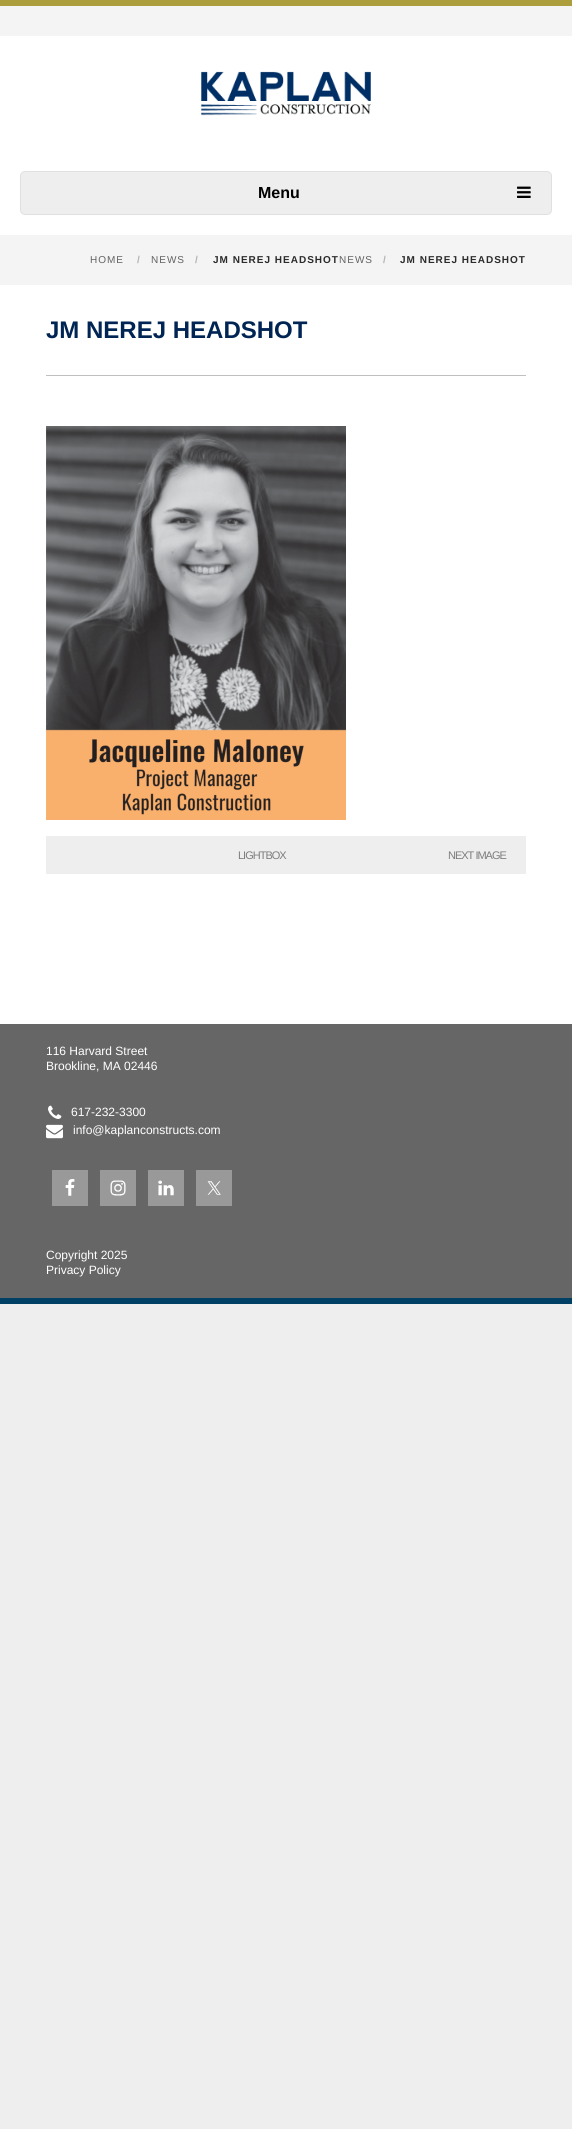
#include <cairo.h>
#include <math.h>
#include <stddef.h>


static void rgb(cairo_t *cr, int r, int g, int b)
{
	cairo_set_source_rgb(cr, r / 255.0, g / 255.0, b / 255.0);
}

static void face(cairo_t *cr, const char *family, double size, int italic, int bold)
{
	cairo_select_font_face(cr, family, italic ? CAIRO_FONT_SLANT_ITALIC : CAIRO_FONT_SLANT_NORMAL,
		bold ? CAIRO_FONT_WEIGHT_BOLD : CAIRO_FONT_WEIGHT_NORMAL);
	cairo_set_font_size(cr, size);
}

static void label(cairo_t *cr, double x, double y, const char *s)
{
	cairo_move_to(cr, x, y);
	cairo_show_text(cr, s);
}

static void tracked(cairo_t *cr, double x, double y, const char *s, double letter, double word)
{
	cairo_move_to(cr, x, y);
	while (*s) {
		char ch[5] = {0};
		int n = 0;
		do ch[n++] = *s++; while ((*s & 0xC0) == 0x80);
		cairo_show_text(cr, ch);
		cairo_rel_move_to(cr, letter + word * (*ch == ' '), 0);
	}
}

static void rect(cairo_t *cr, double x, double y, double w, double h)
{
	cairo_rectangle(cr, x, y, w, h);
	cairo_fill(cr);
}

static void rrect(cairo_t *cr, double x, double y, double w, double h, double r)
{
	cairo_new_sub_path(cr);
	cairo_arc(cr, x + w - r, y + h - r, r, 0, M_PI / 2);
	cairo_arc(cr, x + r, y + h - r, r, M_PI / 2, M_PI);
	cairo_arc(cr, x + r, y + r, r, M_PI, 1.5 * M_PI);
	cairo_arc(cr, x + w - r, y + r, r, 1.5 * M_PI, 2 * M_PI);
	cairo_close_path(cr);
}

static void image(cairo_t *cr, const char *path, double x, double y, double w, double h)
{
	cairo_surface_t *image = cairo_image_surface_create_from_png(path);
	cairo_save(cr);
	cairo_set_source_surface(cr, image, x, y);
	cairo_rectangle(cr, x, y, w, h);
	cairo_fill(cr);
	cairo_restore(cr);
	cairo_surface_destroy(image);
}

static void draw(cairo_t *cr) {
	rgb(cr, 238, 238, 238);
	cairo_paint(cr);
	rgb(cr, 255, 255, 255);
	rect(cr, 0, 36, 572, 988);
	rgb(cr, 173, 158, 61);
	rect(cr, 0, 0, 572, 6);
	rgb(cr, 244, 244, 244);
	rect(cr, 0, 6, 572, 30);
	image(cr, "image0.png", 201, 71, 170, 45);
	rgb(cr, 238, 238, 238);
	rrect(cr, 20.5, 171.5, 531, 43, 4.5);
	cairo_fill_preserve(cr);
	rgb(cr, 224, 224, 224);
	cairo_set_line_width(cr, 1);
	cairo_stroke(cr);
	face(cr, "Arimo", 16, 0, 1);
	rgb(cr, 0, 0, 0);
	label(cr, 258, 198, "Menu");
	image(cr, "image1.png", 517, 186, 14, 12);
	rgb(cr, 244, 244, 244);
	rect(cr, 0, 235, 572, 50);
	face(cr, "Arimo", 10, 0, 0);
	rgb(cr, 98, 98, 98);
	tracked(cr, 90, 263, "HOME", 1, 0);
	face(cr, "Arimo", 10, 0, 1);
	rgb(cr, 179, 179, 179);
	tracked(cr, 137, 263, "/", 1, 0);
	face(cr, "Arimo", 10, 0, 0);
	rgb(cr, 98, 98, 98);
	tracked(cr, 151, 263, "NEWS", 1, 0);
	face(cr, "Arimo", 10, 0, 1);
	rgb(cr, 179, 179, 179);
	tracked(cr, 195, 263, "/", 1, 0);
	rgb(cr, 43, 43, 43);
	tracked(cr, 213, 263, "JM NEREJ HEADSHOT", 1, 0);
	face(cr, "Arimo", 10, 0, 0);
	rgb(cr, 98, 98, 98);
	tracked(cr, 339, 263, "NEWS", 1, 0);
	face(cr, "Arimo", 10, 0, 1);
	rgb(cr, 179, 179, 179);
	tracked(cr, 383, 263, "/", 1, 0);
	rgb(cr, 43, 43, 43);
	tracked(cr, 400, 263, "JM NEREJ HEADSHOT", 1, 0);
	rgb(cr, 191, 191, 191);
	rect(cr, 46, 375, 480, 1);
	face(cr, "Arimo", 24, 0, 1);
	rgb(cr, 0, 37, 84);
	label(cr, 46, 338, "JM NEREJ HEADSHOT");
	image(cr, "image2.png", 46, 426, 300, 394);
	rgb(cr, 238, 238, 238);
	rect(cr, 46, 836, 480, 38);
	face(cr, "Arimo", 11, 0, 0);
	rgb(cr, 125, 125, 125);
	tracked(cr, 238, 859, "LIGHTBOX", -1, 0);
	tracked(cr, 448, 859, "NEXT IMAGE", -1, 0);
	rgb(cr, 102, 102, 102);
	rect(cr, 0, 1024, 572, 274);
	face(cr, "Arimo", 12, 0, 0);
	rgb(cr, 255, 255, 255);
	label(cr, 46, 1055, "116 Harvard Street");
	label(cr, 46, 1070, "Brookline, MA 02446");
	image(cr, "image3.png", 48, 1105, 14, 14);
	label(cr, 71, 1116, "617-232-3300");
	image(cr, "image4.png", 46, 1124, 17, 15);
	label(cr, 73, 1134, "info@kaplanconstructs.com");
	rgb(cr, 153, 153, 153);
	rect(cr, 52, 1170, 36, 36);
	image(cr, "image5.png", 65, 1179, 10, 17);
	rect(cr, 100, 1170, 36, 36);
	image(cr, "image6.png", 110, 1180, 16, 16);
	rect(cr, 148, 1170, 36, 36);
	image(cr, "image7.png", 158, 1180, 16, 16);
	rect(cr, 196, 1170, 36, 36);
	image(cr, "image8.png", 207, 1181, 14, 14);
	rgb(cr, 255, 255, 255);
	label(cr, 46, 1259, "Copyright 2025");
	label(cr, 46, 1274, "Privacy Policy");
	rgb(cr, 0, 64, 101);
	rect(cr, 0, 1298, 572, 6);
}

int main(void) {
	cairo_surface_t *surface = cairo_image_surface_create(CAIRO_FORMAT_RGB24, 572, 2129);
	cairo_t *cr = cairo_create(surface);
	cairo_font_options_t *options = cairo_font_options_create();
	cairo_font_options_set_hint_metrics(options, CAIRO_HINT_METRICS_OFF);
	cairo_font_options_set_hint_style(options, CAIRO_HINT_STYLE_NONE);
	cairo_set_font_options(cr, options);
	cairo_set_miter_limit(cr, 4);
	draw(cr);
	cairo_surface_write_to_png(surface, "render.png");
	cairo_font_options_destroy(options);
	cairo_destroy(cr);
	cairo_surface_destroy(surface);
	return 0;
}
